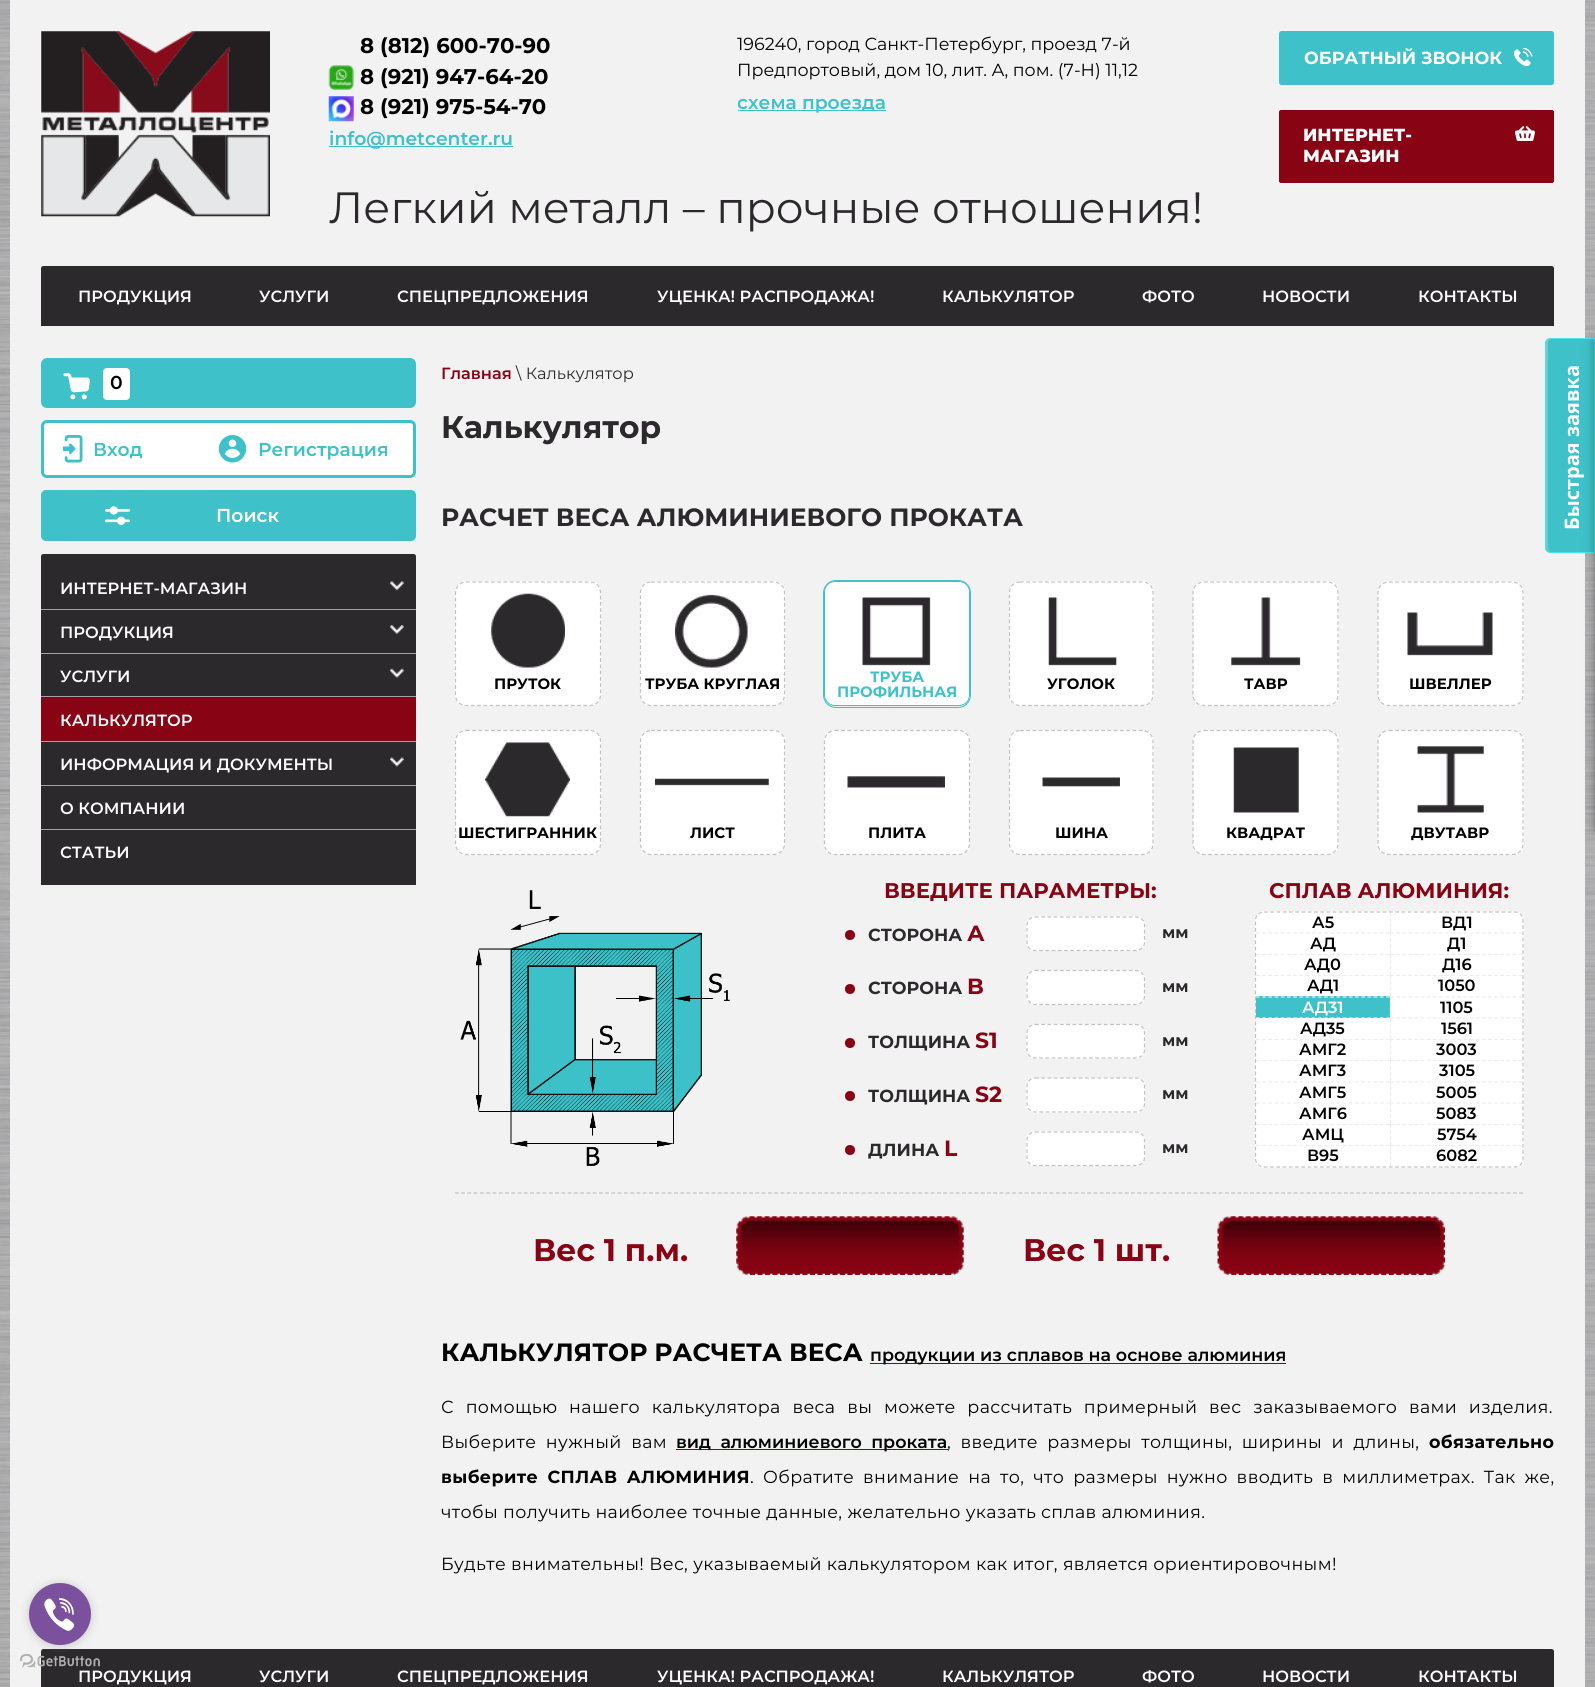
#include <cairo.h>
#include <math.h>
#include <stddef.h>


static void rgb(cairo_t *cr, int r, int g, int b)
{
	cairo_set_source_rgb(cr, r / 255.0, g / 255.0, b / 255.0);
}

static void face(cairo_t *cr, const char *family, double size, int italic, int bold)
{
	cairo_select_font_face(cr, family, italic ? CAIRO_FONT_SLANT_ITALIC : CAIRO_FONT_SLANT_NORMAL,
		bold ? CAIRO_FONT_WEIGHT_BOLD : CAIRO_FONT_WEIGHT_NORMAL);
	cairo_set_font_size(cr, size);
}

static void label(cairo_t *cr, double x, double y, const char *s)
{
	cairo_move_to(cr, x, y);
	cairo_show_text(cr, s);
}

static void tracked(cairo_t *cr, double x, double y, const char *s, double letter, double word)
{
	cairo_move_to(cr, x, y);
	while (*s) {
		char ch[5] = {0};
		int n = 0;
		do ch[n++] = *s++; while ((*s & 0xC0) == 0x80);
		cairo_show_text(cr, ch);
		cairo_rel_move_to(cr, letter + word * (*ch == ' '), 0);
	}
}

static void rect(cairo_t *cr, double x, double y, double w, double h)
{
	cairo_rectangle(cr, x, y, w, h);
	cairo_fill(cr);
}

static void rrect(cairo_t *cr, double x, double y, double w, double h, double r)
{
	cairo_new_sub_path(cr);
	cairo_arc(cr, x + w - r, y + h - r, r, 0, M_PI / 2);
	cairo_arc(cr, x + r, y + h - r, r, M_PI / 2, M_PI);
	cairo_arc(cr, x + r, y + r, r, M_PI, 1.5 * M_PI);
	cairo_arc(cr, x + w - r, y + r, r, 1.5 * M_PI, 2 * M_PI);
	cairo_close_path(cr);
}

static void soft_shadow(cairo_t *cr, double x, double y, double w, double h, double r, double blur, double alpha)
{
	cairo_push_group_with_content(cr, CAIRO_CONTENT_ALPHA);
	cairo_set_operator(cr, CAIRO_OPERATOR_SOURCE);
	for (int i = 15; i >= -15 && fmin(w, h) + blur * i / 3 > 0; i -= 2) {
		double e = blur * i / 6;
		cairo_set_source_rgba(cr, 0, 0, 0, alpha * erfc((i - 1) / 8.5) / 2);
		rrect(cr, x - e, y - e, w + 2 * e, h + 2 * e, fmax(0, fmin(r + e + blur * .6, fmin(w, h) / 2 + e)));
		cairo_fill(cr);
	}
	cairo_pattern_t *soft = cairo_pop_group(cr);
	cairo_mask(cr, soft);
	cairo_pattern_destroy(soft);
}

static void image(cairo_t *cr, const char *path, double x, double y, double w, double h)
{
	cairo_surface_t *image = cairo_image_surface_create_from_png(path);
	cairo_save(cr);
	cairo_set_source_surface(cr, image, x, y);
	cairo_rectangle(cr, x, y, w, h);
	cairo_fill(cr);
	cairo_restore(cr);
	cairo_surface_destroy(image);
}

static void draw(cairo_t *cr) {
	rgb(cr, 255, 255, 255);
	cairo_paint(cr);
	image(cr, "image0.png", 0, 0, 1595, 1687);
	rgb(cr, 242, 242, 242);
	rect(cr, 10, 0, 1575, 1687);
	image(cr, "image1.png", 41, 31, 229, 186);
	face(cr, "Montserrat", 21.25, 0, 1);
	rgb(cr, 0, 0, 0);
	label(cr, 360, 53, "8 (812) 600-70-90");
	image(cr, "image2.png", 328, 65, 26, 25);
	label(cr, 360, 84, "8 (921) 947-64-20");
	image(cr, "image3.png", 328, 96, 26, 26);
	label(cr, 360, 114, "8 (921) 975-54-70");
	rgb(cr, 62, 193, 201);
	rect(cr, 329, 146, 184, 1);
	face(cr, "Montserrat SemiBold", 18.75, 0, 0);
	label(cr, 329, 145, "info@metcenter.ru");
	face(cr, "Montserrat", 17.5, 0, 0);
	rgb(cr, 0, 0, 0);
	label(cr, 737, 50, "196240, город Санкт-Петербург, проезд 7-й");
	label(cr, 737, 76, "Предпортовый, дом 10, лит. А, пом. (7-Н) 11,12");
	rgb(cr, 62, 193, 201);
	rect(cr, 738, 110, 148, 1);
	cairo_save(cr);
	cairo_rectangle(cr, 738, 91, 148, 23);
	cairo_clip(cr);
	face(cr, "Montserrat SemiBold", 18.75, 0, 0);
	label(cr, 737, 109, "схема проезда");
	cairo_restore(cr);
	rrect(cr, 1279, 31, 275, 54, 2.5);
	cairo_fill(cr);
	image(cr, "image4.png", 1514, 48, 19, 18);
	face(cr, "Montserrat", 17.5, 0, 1);
	rgb(cr, 255, 255, 255);
	label(cr, 1304, 64, "ОБРАТНЫЙ ЗВОНОК");
	rgb(cr, 136, 3, 19);
	rrect(cr, 1279, 110, 275, 73, 2.5);
	cairo_fill(cr);
	image(cr, "image5.png", 1515, 126, 20, 15);
	rrect(cr, 1280.5, 111.5, 272, 70, 1);
	cairo_set_line_width(cr, 3);
	cairo_stroke(cr);
	face(cr, "Montserrat ExtraBold", 17.5, 0, 0);
	rgb(cr, 255, 255, 255);
	label(cr, 1303, 141, "ИНТЕРНЕТ-");
	label(cr, 1303, 162, "МАГАЗИН");
	face(cr, "Montserrat", 43.75, 0, 0);
	rgb(cr, 43, 41, 43);
	label(cr, 329, 223, "Легкий металл – прочные отношения!");
	cairo_new_path(cr);
	cairo_move_to(cr, 43.5, 266);
	cairo_line_to(cr, 1551.5, 266);
	cairo_curve_to(cr, 1553, 266, 1554, 267, 1554, 268.5);
	cairo_line_to(cr, 1554, 326);
	cairo_line_to(cr, 41, 326);
	cairo_line_to(cr, 41, 268.5);
	cairo_curve_to(cr, 41, 267, 42, 266, 43.5, 266);
	cairo_close_path(cr);
	cairo_fill(cr);
	face(cr, "Montserrat SemiBold", 16.25, 0, 0);
	rgb(cr, 255, 255, 255);
	label(cr, 78, 302, "ПРОДУКЦИЯ");
	label(cr, 259, 302, "УСЛУГИ");
	label(cr, 397, 302, "СПЕЦПРЕДЛОЖЕНИЯ");
	label(cr, 657, 302, "УЦЕНКА! РАСПРОДАЖА!");
	label(cr, 942, 302, "КАЛЬКУЛЯТОР");
	label(cr, 1142, 302, "ФОТО");
	label(cr, 1262, 302, "НОВОСТИ");
	label(cr, 1418, 302, "КОНТАКТЫ");
	rgb(cr, 62, 193, 201);
	rrect(cr, 42.5, 359.5, 372, 47, 4.5);
	cairo_fill_preserve(cr);
	cairo_stroke(cr);
	image(cr, "image6.png", 63, 373, 27, 27);
	rgb(cr, 255, 255, 255);
	rrect(cr, 103.5, 368.5, 26, 31, 3.5);
	cairo_fill_preserve(cr);
	cairo_set_line_width(cr, 1);
	cairo_stroke(cr);
	face(cr, "Montserrat SemiBold", 18.75, 0, 0);
	rgb(cr, 0, 0, 0);
	label(cr, 110, 389, "0");
	rgb(cr, 255, 255, 255);
	rrect(cr, 42.5, 421.5, 372, 55, 4.5);
	cairo_fill_preserve(cr);
	rgb(cr, 62, 193, 201);
	cairo_set_line_width(cr, 3);
	cairo_stroke(cr);
	image(cr, "image7.png", 63, 435, 20, 28);
	label(cr, 93, 456, "Вход");
	image(cr, "image8.png", 219, 435, 27, 28);
	label(cr, 258, 456, "Регистрация");
	rrect(cr, 41, 490, 375, 51, 5);
	cairo_fill(cr);
	image(cr, "image9.png", 105, 506, 25, 19);
	rgb(cr, 255, 255, 255);
	label(cr, 216, 522, "Поиск");
	rgb(cr, 43, 41, 43);
	cairo_new_path(cr);
	cairo_move_to(cr, 43.5, 554);
	cairo_line_to(cr, 413.5, 554);
	cairo_curve_to(cr, 415, 554, 416, 555, 416, 556.5);
	cairo_line_to(cr, 416, 885);
	cairo_line_to(cr, 41, 885);
	cairo_line_to(cr, 41, 556.5);
	cairo_curve_to(cr, 41, 555, 42, 554, 43.5, 554);
	cairo_close_path(cr);
	cairo_fill(cr);
	face(cr, "Montserrat SemiBold", 16.25, 0, 0);
	rgb(cr, 255, 255, 255);
	label(cr, 60, 594, "ИНТЕРНЕТ-МАГАЗИН");
	image(cr, "image10.png", 390, 581, 14, 10);
	rgb(cr, 162, 162, 164);
	rect(cr, 41, 609, 375, 1);
	rgb(cr, 255, 255, 255);
	label(cr, 60, 638, "ПРОДУКЦИЯ");
	image(cr, "image11.png", 390, 625, 14, 9);
	rgb(cr, 162, 162, 164);
	rect(cr, 41, 653, 375, 1);
	rgb(cr, 255, 255, 255);
	label(cr, 60, 682, "УСЛУГИ");
	image(cr, "image12.png", 390, 668, 14, 10);
	rgb(cr, 162, 162, 164);
	rect(cr, 41, 696, 375, 1);
	rgb(cr, 136, 3, 19);
	rect(cr, 41, 698, 375, 43);
	rgb(cr, 255, 255, 255);
	label(cr, 60, 726, "КАЛЬКУЛЯТОР");
	rgb(cr, 162, 162, 164);
	rect(cr, 41, 741, 375, 1);
	rgb(cr, 255, 255, 255);
	label(cr, 60, 770, "ИНФОРМАЦИЯ И ДОКУМЕНТЫ");
	image(cr, "image13.png", 390, 757, 14, 10);
	rgb(cr, 162, 162, 164);
	rect(cr, 41, 785, 375, 1);
	rgb(cr, 255, 255, 255);
	label(cr, 60, 814, "О КОМПАНИИ");
	rgb(cr, 162, 162, 164);
	rect(cr, 41, 829, 375, 1);
	rgb(cr, 255, 255, 255);
	label(cr, 60, 858, "СТАТЬИ");
	rgb(cr, 136, 3, 19);
	label(cr, 441, 379, "Главная");
	face(cr, "Montserrat", 16.25, 0, 0);
	rgb(cr, 43, 41, 43);
	label(cr, 516, 379, "\\ Калькулятор");
	face(cr, "Montserrat", 31.25, 0, 1);
	label(cr, 441, 438, "Калькулятор");
	face(cr, "Montserrat", 25, 0, 1);
	label(cr, 441, 526, "РАСЧЕТ ВЕСА АЛЮМИНИЕВОГО ПРОКАТА");
	rgb(cr, 255, 255, 255);
	rrect(cr, 455, 581, 146, 125, 11);
	cairo_fill(cr);
	cairo_new_path(cr);
	cairo_move_to(cr, 466, 582);
	cairo_line_to(cr, 590, 582);
	cairo_curve_to(cr, 596, 582, 600.5, 586.5, 600.5, 592.5);
	cairo_line_to(cr, 600.5, 695);
	cairo_curve_to(cr, 600.5, 701, 596, 705.5, 590, 705.5);
	cairo_line_to(cr, 466, 705.5);
	cairo_curve_to(cr, 460.5, 705.5, 455.5, 701, 455.5, 695);
	cairo_line_to(cr, 455.5, 592.5);
	cairo_curve_to(cr, 455.5, 586.5, 460.5, 582, 466, 582);
	cairo_close_path(cr);
	rgb(cr, 194, 194, 194);
	cairo_set_line_width(cr, 1.2);
	cairo_set_dash(cr, (double[]){3.75, 2.5}, 2, 0);
	cairo_stroke(cr);
	image(cr, "image14.png", 491, 593, 74, 75);
	face(cr, "Montserrat", 15, 0, 1);
	rgb(cr, 0, 0, 0);
	label(cr, 494, 689, "ПРУТОК");
	rgb(cr, 255, 255, 255);
	rrect(cr, 640, 581, 145, 125, 11);
	cairo_fill(cr);
	cairo_new_path(cr);
	cairo_move_to(cr, 651, 582);
	cairo_line_to(cr, 774, 582);
	cairo_curve_to(cr, 779.5, 582, 784.5, 586.5, 784.5, 592.5);
	cairo_line_to(cr, 784.5, 695);
	cairo_curve_to(cr, 784.5, 701, 779.5, 705.5, 774, 705.5);
	cairo_line_to(cr, 651, 705.5);
	cairo_curve_to(cr, 645.5, 705.5, 640.5, 701, 640.5, 695);
	cairo_line_to(cr, 640.5, 592.5);
	cairo_curve_to(cr, 640.5, 586.5, 645.5, 582, 651, 582);
	cairo_close_path(cr);
	rgb(cr, 194, 194, 194);
	cairo_stroke(cr);
	image(cr, "image15.png", 675, 594, 73, 74);
	rgb(cr, 0, 0, 0);
	label(cr, 645, 689, "ТРУБА КРУГЛАЯ");
	rrect(cr, 823.5, 580.5, 147, 127, 12.5);
	rgb(cr, 62, 193, 201);
	cairo_set_line_width(cr, 1);
	cairo_set_dash(cr, NULL, 0, 0);
	cairo_stroke(cr);
	rgb(cr, 255, 255, 255);
	rrect(cr, 824.5, 581.5, 145, 124, 10.5);
	cairo_fill_preserve(cr);
	rgb(cr, 62, 193, 201);
	cairo_stroke(cr);
	image(cr, "image16.png", 862, 597, 69, 69);
	label(cr, 870, 682, "ТРУБА");
	label(cr, 837, 697, "ПРОФИЛЬНАЯ");
	rgb(cr, 255, 255, 255);
	rrect(cr, 1009, 581, 145, 125, 11);
	cairo_fill(cr);
	cairo_new_path(cr);
	cairo_move_to(cr, 1020, 582);
	cairo_line_to(cr, 1142.5, 582);
	cairo_curve_to(cr, 1148.5, 582, 1153, 586.5, 1153, 592.5);
	cairo_line_to(cr, 1153, 695);
	cairo_curve_to(cr, 1153, 701, 1148.5, 705.5, 1142.5, 705.5);
	cairo_line_to(cr, 1020, 705.5);
	cairo_curve_to(cr, 1014, 705.5, 1009.5, 701, 1009.5, 695);
	cairo_line_to(cr, 1009.5, 592.5);
	cairo_curve_to(cr, 1009.5, 586.5, 1014, 582, 1020, 582);
	cairo_close_path(cr);
	rgb(cr, 194, 194, 194);
	cairo_set_line_width(cr, 1.2);
	cairo_set_dash(cr, (double[]){3.75, 2.5}, 2, 0);
	cairo_stroke(cr);
	image(cr, "image17.png", 1048, 597, 69, 69);
	rgb(cr, 0, 0, 0);
	label(cr, 1047, 689, "УГОЛОК");
	rgb(cr, 255, 255, 255);
	rrect(cr, 1193, 581, 146, 125, 11);
	cairo_fill(cr);
	cairo_new_path(cr);
	cairo_move_to(cr, 1204, 582);
	cairo_line_to(cr, 1327.5, 582);
	cairo_curve_to(cr, 1333.5, 582, 1338, 586.5, 1338, 592.5);
	cairo_line_to(cr, 1338, 695);
	cairo_curve_to(cr, 1338, 701, 1333.5, 705.5, 1327.5, 705.5);
	cairo_line_to(cr, 1204, 705.5);
	cairo_curve_to(cr, 1198, 705.5, 1193, 701, 1193, 695);
	cairo_line_to(cr, 1193, 592.5);
	cairo_curve_to(cr, 1193, 586.5, 1198, 582, 1204, 582);
	cairo_close_path(cr);
	rgb(cr, 194, 194, 194);
	cairo_stroke(cr);
	image(cr, "image18.png", 1231, 597, 70, 69);
	rgb(cr, 0, 0, 0);
	label(cr, 1244, 689, "ТАВР");
	rgb(cr, 255, 255, 255);
	rrect(cr, 1378, 581, 146, 125, 11);
	cairo_fill(cr);
	cairo_new_path(cr);
	cairo_move_to(cr, 1389, 582);
	cairo_line_to(cr, 1512.5, 582);
	cairo_curve_to(cr, 1518.5, 582, 1523, 586.5, 1523, 592.5);
	cairo_line_to(cr, 1523, 695);
	cairo_curve_to(cr, 1523, 701, 1518.5, 705.5, 1512.5, 705.5);
	cairo_line_to(cr, 1389, 705.5);
	cairo_curve_to(cr, 1383, 705.5, 1378, 701, 1378, 695);
	cairo_line_to(cr, 1378, 592.5);
	cairo_curve_to(cr, 1378, 586.5, 1383, 582, 1389, 582);
	cairo_close_path(cr);
	rgb(cr, 194, 194, 194);
	cairo_stroke(cr);
	image(cr, "image19.png", 1407, 612, 86, 44);
	rgb(cr, 0, 0, 0);
	label(cr, 1409, 689, "ШВЕЛЛЕР");
	rgb(cr, 255, 255, 255);
	rrect(cr, 455, 730, 146, 125, 11);
	cairo_fill(cr);
	cairo_new_path(cr);
	cairo_move_to(cr, 466, 730.5);
	cairo_line_to(cr, 590, 730.5);
	cairo_curve_to(cr, 596, 730.5, 600.5, 735.5, 600.5, 741);
	cairo_line_to(cr, 600.5, 844);
	cairo_curve_to(cr, 600.5, 849.5, 596, 854.5, 590, 854.5);
	cairo_line_to(cr, 466, 854.5);
	cairo_curve_to(cr, 460.5, 854.5, 455.5, 849.5, 455.5, 844);
	cairo_line_to(cr, 455.5, 741);
	cairo_curve_to(cr, 455.5, 735.5, 460.5, 730.5, 466, 730.5);
	cairo_close_path(cr);
	rgb(cr, 194, 194, 194);
	cairo_stroke(cr);
	image(cr, "image20.png", 485, 742, 85, 75);
	rgb(cr, 0, 0, 0);
	label(cr, 458, 838, "ШЕСТИГРАННИК");
	rgb(cr, 255, 255, 255);
	rrect(cr, 640, 730, 145, 125, 11);
	cairo_fill(cr);
	cairo_new_path(cr);
	cairo_move_to(cr, 651, 730.5);
	cairo_line_to(cr, 774, 730.5);
	cairo_curve_to(cr, 779.5, 730.5, 784.5, 735.5, 784.5, 741);
	cairo_line_to(cr, 784.5, 844);
	cairo_curve_to(cr, 784.5, 849.5, 779.5, 854.5, 774, 854.5);
	cairo_line_to(cr, 651, 854.5);
	cairo_curve_to(cr, 645.5, 854.5, 640.5, 849.5, 640.5, 844);
	cairo_line_to(cr, 640.5, 741);
	cairo_curve_to(cr, 640.5, 735.5, 645.5, 730.5, 651, 730.5);
	cairo_close_path(cr);
	rgb(cr, 194, 194, 194);
	cairo_stroke(cr);
	image(cr, "image21.png", 655, 778, 114, 8);
	rgb(cr, 0, 0, 0);
	label(cr, 690, 838, "ЛИСТ");
	rgb(cr, 255, 255, 255);
	rrect(cr, 824, 730, 146, 125, 11);
	cairo_fill(cr);
	cairo_new_path(cr);
	cairo_move_to(cr, 835, 730.5);
	cairo_line_to(cr, 959, 730.5);
	cairo_curve_to(cr, 964.5, 730.5, 969.5, 735.5, 969.5, 741);
	cairo_line_to(cr, 969.5, 844);
	cairo_curve_to(cr, 969.5, 849.5, 964.5, 854.5, 959, 854.5);
	cairo_line_to(cr, 835, 854.5);
	cairo_curve_to(cr, 829, 854.5, 824.5, 849.5, 824.5, 844);
	cairo_line_to(cr, 824.5, 741);
	cairo_curve_to(cr, 824.5, 735.5, 829, 730.5, 835, 730.5);
	cairo_close_path(cr);
	rgb(cr, 194, 194, 194);
	cairo_stroke(cr);
	image(cr, "image22.png", 847, 776, 98, 12);
	rgb(cr, 0, 0, 0);
	label(cr, 868, 838, "ПЛИТА");
	rgb(cr, 255, 255, 255);
	rrect(cr, 1009, 730, 145, 125, 11);
	cairo_fill(cr);
	cairo_new_path(cr);
	cairo_move_to(cr, 1020, 730.5);
	cairo_line_to(cr, 1142.5, 730.5);
	cairo_curve_to(cr, 1148.5, 730.5, 1153, 735.5, 1153, 741);
	cairo_line_to(cr, 1153, 844);
	cairo_curve_to(cr, 1153, 849.5, 1148.5, 854.5, 1142.5, 854.5);
	cairo_line_to(cr, 1020, 854.5);
	cairo_curve_to(cr, 1014, 854.5, 1009.5, 849.5, 1009.5, 844);
	cairo_line_to(cr, 1009.5, 741);
	cairo_curve_to(cr, 1009.5, 735.5, 1014, 730.5, 1020, 730.5);
	cairo_close_path(cr);
	rgb(cr, 194, 194, 194);
	cairo_stroke(cr);
	image(cr, "image23.png", 1042, 777, 78, 10);
	rgb(cr, 0, 0, 0);
	label(cr, 1055, 838, "ШИНА");
	rgb(cr, 255, 255, 255);
	rrect(cr, 1193, 730, 146, 125, 11);
	cairo_fill(cr);
	cairo_new_path(cr);
	cairo_move_to(cr, 1204, 730.5);
	cairo_line_to(cr, 1327.5, 730.5);
	cairo_curve_to(cr, 1333.5, 730.5, 1338, 735.5, 1338, 741);
	cairo_line_to(cr, 1338, 844);
	cairo_curve_to(cr, 1338, 849.5, 1333.5, 854.5, 1327.5, 854.5);
	cairo_line_to(cr, 1204, 854.5);
	cairo_curve_to(cr, 1198, 854.5, 1193, 849.5, 1193, 844);
	cairo_line_to(cr, 1193, 741);
	cairo_curve_to(cr, 1193, 735.5, 1198, 730.5, 1204, 730.5);
	cairo_close_path(cr);
	rgb(cr, 194, 194, 194);
	cairo_stroke(cr);
	image(cr, "image24.png", 1233, 747, 66, 66);
	rgb(cr, 0, 0, 0);
	label(cr, 1226, 838, "КВАДРАТ");
	rgb(cr, 255, 255, 255);
	rrect(cr, 1378, 730, 146, 125, 11);
	cairo_fill(cr);
	cairo_new_path(cr);
	cairo_move_to(cr, 1389, 730.5);
	cairo_line_to(cr, 1512.5, 730.5);
	cairo_curve_to(cr, 1518.5, 730.5, 1523, 735.5, 1523, 741);
	cairo_line_to(cr, 1523, 844);
	cairo_curve_to(cr, 1523, 849.5, 1518.5, 854.5, 1512.5, 854.5);
	cairo_line_to(cr, 1389, 854.5);
	cairo_curve_to(cr, 1383, 854.5, 1378, 849.5, 1378, 844);
	cairo_line_to(cr, 1378, 741);
	cairo_curve_to(cr, 1378, 735.5, 1383, 730.5, 1389, 730.5);
	cairo_close_path(cr);
	rgb(cr, 194, 194, 194);
	cairo_stroke(cr);
	image(cr, "image25.png", 1417, 746, 67, 67);
	rgb(cr, 0, 0, 0);
	label(cr, 1411, 838, "ДВУТАВР");
	cairo_new_path(cr);
	cairo_move_to(cr, 455, 1193);
	cairo_line_to(cr, 1524, 1193);
	rgb(cr, 194, 194, 194);
	cairo_set_dash(cr, (double[]){3.75, 2.51}, 2, 0);
	cairo_stroke(cr);
	image(cr, "image26.png", 460, 890, 270, 276);
	face(cr, "Montserrat", 21.25, 0, 1);
	rgb(cr, 136, 3, 19);
	label(cr, 884, 898, "ВВЕДИТЕ ПАРАМЕТРЫ:");
	cairo_new_path(cr);
	cairo_arc(cr, 850, 935, 5, 0, 2 * M_PI);
	cairo_fill(cr);
	face(cr, "Montserrat", 17.5, 0, 1);
	rgb(cr, 43, 41, 43);
	label(cr, 868, 941, "СТОРОНА");
	face(cr, "Montserrat", 22, 0, 1);
	rgb(cr, 136, 3, 19);
	label(cr, 967, 941, "А");
	rgb(cr, 255, 255, 255);
	rrect(cr, 1026, 916, 119, 35, 9);
	cairo_fill(cr);
	cairo_new_path(cr);
	cairo_move_to(cr, 1035, 917);
	cairo_line_to(cr, 1136, 917);
	cairo_curve_to(cr, 1140.5, 917, 1144.5, 920.5, 1144.5, 925);
	cairo_line_to(cr, 1144.5, 942.5);
	cairo_curve_to(cr, 1144.5, 947, 1140.5, 950.5, 1136, 950.5);
	cairo_line_to(cr, 1035, 950.5);
	cairo_curve_to(cr, 1030.5, 950.5, 1027, 947, 1027, 942.5);
	cairo_line_to(cr, 1027, 925);
	cairo_curve_to(cr, 1027, 920.5, 1030.5, 917, 1035, 917);
	cairo_close_path(cr);
	rgb(cr, 194, 194, 194);
	cairo_set_dash(cr, (double[]){3.75, 2.5}, 2, 0);
	cairo_stroke(cr);
	face(cr, "Montserrat", 16.25, 0, 1);
	rgb(cr, 43, 41, 43);
	label(cr, 1162, 938, "мм");
	rgb(cr, 136, 3, 19);
	cairo_new_path(cr);
	cairo_arc(cr, 850, 989, 5, 0, 2 * M_PI);
	cairo_fill(cr);
	face(cr, "Montserrat", 17.5, 0, 1);
	rgb(cr, 43, 41, 43);
	label(cr, 868, 994, "СТОРОНА");
	face(cr, "Montserrat", 22, 0, 1);
	rgb(cr, 136, 3, 19);
	label(cr, 967, 994, "B");
	rgb(cr, 255, 255, 255);
	rrect(cr, 1026, 970, 119, 35, 9);
	cairo_fill(cr);
	cairo_new_path(cr);
	cairo_move_to(cr, 1035, 970.5);
	cairo_line_to(cr, 1136, 970.5);
	cairo_curve_to(cr, 1140.5, 970.5, 1144.5, 974.5, 1144.5, 979);
	cairo_line_to(cr, 1144.5, 996);
	cairo_curve_to(cr, 1144.5, 1000.5, 1140.5, 1004.5, 1136, 1004.5);
	cairo_line_to(cr, 1035, 1004.5);
	cairo_curve_to(cr, 1030.5, 1004.5, 1027, 1000.5, 1027, 996);
	cairo_line_to(cr, 1027, 979);
	cairo_curve_to(cr, 1027, 974.5, 1030.5, 970.5, 1035, 970.5);
	cairo_close_path(cr);
	rgb(cr, 194, 194, 194);
	cairo_stroke(cr);
	face(cr, "Montserrat", 16.25, 0, 1);
	rgb(cr, 43, 41, 43);
	label(cr, 1162, 992, "мм");
	rgb(cr, 136, 3, 19);
	cairo_new_path(cr);
	cairo_arc(cr, 850, 1043, 5, 0, 2 * M_PI);
	cairo_fill(cr);
	face(cr, "Montserrat", 17.5, 0, 1);
	rgb(cr, 43, 41, 43);
	label(cr, 868, 1048, "ТОЛЩИНА");
	face(cr, "Montserrat", 22, 0, 1);
	rgb(cr, 136, 3, 19);
	label(cr, 975, 1048, "S1");
	rgb(cr, 255, 255, 255);
	rrect(cr, 1026, 1024, 119, 35, 9);
	cairo_fill(cr);
	cairo_new_path(cr);
	cairo_move_to(cr, 1035, 1024.5);
	cairo_line_to(cr, 1136, 1024.5);
	cairo_curve_to(cr, 1140.5, 1024.5, 1144.5, 1028, 1144.5, 1032.5);
	cairo_line_to(cr, 1144.5, 1050);
	cairo_curve_to(cr, 1144.5, 1054.5, 1140.5, 1058, 1136, 1058);
	cairo_line_to(cr, 1035, 1058);
	cairo_curve_to(cr, 1030.5, 1058, 1027, 1054.5, 1027, 1050);
	cairo_line_to(cr, 1027, 1032.5);
	cairo_curve_to(cr, 1027, 1028, 1030.5, 1024.5, 1035, 1024.5);
	cairo_close_path(cr);
	rgb(cr, 194, 194, 194);
	cairo_stroke(cr);
	face(cr, "Montserrat", 16.25, 0, 1);
	rgb(cr, 43, 41, 43);
	label(cr, 1162, 1046, "мм");
	rgb(cr, 136, 3, 19);
	cairo_new_path(cr);
	cairo_arc(cr, 850, 1096, 5, 0, 2 * M_PI);
	cairo_fill(cr);
	face(cr, "Montserrat", 17.5, 0, 1);
	rgb(cr, 43, 41, 43);
	label(cr, 868, 1102, "ТОЛЩИНА");
	face(cr, "Montserrat", 22, 0, 1);
	rgb(cr, 136, 3, 19);
	label(cr, 975, 1102, "S2");
	rgb(cr, 255, 255, 255);
	rrect(cr, 1026, 1078, 119, 35, 9);
	cairo_fill(cr);
	cairo_new_path(cr);
	cairo_move_to(cr, 1035, 1078);
	cairo_line_to(cr, 1136, 1078);
	cairo_curve_to(cr, 1140.5, 1078, 1144.5, 1082, 1144.5, 1086);
	cairo_line_to(cr, 1144.5, 1104);
	cairo_curve_to(cr, 1144.5, 1108, 1140.5, 1112, 1136, 1112);
	cairo_line_to(cr, 1035, 1112);
	cairo_curve_to(cr, 1030.5, 1112, 1027, 1108, 1027, 1104);
	cairo_line_to(cr, 1027, 1086);
	cairo_curve_to(cr, 1027, 1082, 1030.5, 1078, 1035, 1078);
	cairo_close_path(cr);
	rgb(cr, 194, 194, 194);
	cairo_stroke(cr);
	face(cr, "Montserrat", 16.25, 0, 1);
	rgb(cr, 43, 41, 43);
	label(cr, 1162, 1099, "мм");
	rgb(cr, 136, 3, 19);
	cairo_new_path(cr);
	cairo_arc(cr, 850, 1150, 5, 0, 2 * M_PI);
	cairo_fill(cr);
	face(cr, "Montserrat", 17.5, 0, 1);
	rgb(cr, 43, 41, 43);
	label(cr, 868, 1156, "ДЛИНА");
	face(cr, "Montserrat", 22, 0, 1);
	rgb(cr, 136, 3, 19);
	label(cr, 944, 1156, "L");
	rgb(cr, 255, 255, 255);
	rrect(cr, 1026, 1131, 119, 35, 9);
	cairo_fill(cr);
	cairo_new_path(cr);
	cairo_move_to(cr, 1035, 1132);
	cairo_line_to(cr, 1136, 1132);
	cairo_curve_to(cr, 1140.5, 1132, 1144.5, 1135.5, 1144.5, 1140);
	cairo_line_to(cr, 1144.5, 1157.5);
	cairo_curve_to(cr, 1144.5, 1162, 1140.5, 1165.5, 1136, 1165.5);
	cairo_line_to(cr, 1035, 1165.5);
	cairo_curve_to(cr, 1030.5, 1165.5, 1027, 1162, 1027, 1157.5);
	cairo_line_to(cr, 1027, 1140);
	cairo_curve_to(cr, 1027, 1135.5, 1030.5, 1132, 1035, 1132);
	cairo_close_path(cr);
	rgb(cr, 194, 194, 194);
	cairo_stroke(cr);
	face(cr, "Montserrat", 16.25, 0, 1);
	rgb(cr, 43, 41, 43);
	label(cr, 1162, 1153, "мм");
	face(cr, "Montserrat", 21.25, 0, 1);
	rgb(cr, 136, 3, 19);
	label(cr, 1269, 898, "СПЛАВ АЛЮМИНИЯ:");
	rgb(cr, 255, 255, 255);
	rrect(cr, 1255, 911, 269, 257, 9);
	cairo_fill(cr);
	cairo_new_path(cr);
	cairo_move_to(cr, 1264, 912);
	cairo_line_to(cr, 1515, 912);
	cairo_curve_to(cr, 1519.5, 912, 1523, 915.5, 1523, 920);
	cairo_line_to(cr, 1523, 1159);
	cairo_curve_to(cr, 1523, 1163, 1519.5, 1167, 1515, 1167);
	cairo_line_to(cr, 1264, 1167);
	cairo_curve_to(cr, 1259.5, 1167, 1255.5, 1163, 1255.5, 1159);
	cairo_line_to(cr, 1255.5, 920);
	cairo_curve_to(cr, 1255.5, 915.5, 1259.5, 912, 1264, 912);
	cairo_close_path(cr);
	rgb(cr, 194, 194, 194);
	cairo_stroke(cr);
	face(cr, "Montserrat SemiBold", 16.25, 0, 0);
	rgb(cr, 0, 0, 0);
	label(cr, 1312, 928, "А5");
	cairo_new_path(cr);
	cairo_move_to(cr, 1390.5, 912.5);
	cairo_line_to(cr, 1390.5, 932.5);
	rgb(cr, 237, 237, 237);
	cairo_set_dash(cr, (double[]){3.75, 1.66}, 2, 0);
	cairo_stroke(cr);
	rgb(cr, 0, 0, 0);
	label(cr, 1441, 928, "ВД1");
	cairo_new_path(cr);
	cairo_move_to(cr, 1256, 933);
	cairo_line_to(cr, 1390, 933);
	rgb(cr, 237, 237, 237);
	cairo_set_dash(cr, (double[]){3.75, 2.44}, 2, 0);
	cairo_stroke(cr);
	rgb(cr, 0, 0, 0);
	label(cr, 1310, 949, "АД");
	cairo_new_path(cr);
	cairo_move_to(cr, 1390, 933);
	cairo_line_to(cr, 1522.5, 933);
	rgb(cr, 237, 237, 237);
	cairo_set_dash(cr, (double[]){3.75, 2.38}, 2, 0);
	cairo_stroke(cr);
	cairo_new_path(cr);
	cairo_move_to(cr, 1390.5, 932.5);
	cairo_line_to(cr, 1390.5, 954);
	cairo_set_dash(cr, (double[]){3.75, 2.09}, 2, 0);
	cairo_stroke(cr);
	rgb(cr, 0, 0, 0);
	label(cr, 1447, 949, "Д1");
	cairo_new_path(cr);
	cairo_move_to(cr, 1256, 954.5);
	cairo_line_to(cr, 1390, 954.5);
	rgb(cr, 237, 237, 237);
	cairo_set_dash(cr, (double[]){3.75, 2.44}, 2, 0);
	cairo_stroke(cr);
	rgb(cr, 0, 0, 0);
	label(cr, 1304, 970, "АД0");
	cairo_new_path(cr);
	cairo_move_to(cr, 1390, 954.5);
	cairo_line_to(cr, 1522.5, 954.5);
	rgb(cr, 237, 237, 237);
	cairo_set_dash(cr, (double[]){3.75, 2.38}, 2, 0);
	cairo_stroke(cr);
	cairo_new_path(cr);
	cairo_move_to(cr, 1390.5, 954);
	cairo_line_to(cr, 1390.5, 975);
	cairo_set_dash(cr, (double[]){3.75, 2.09}, 2, 0);
	cairo_stroke(cr);
	rgb(cr, 0, 0, 0);
	label(cr, 1442, 970, "Д16");
	cairo_new_path(cr);
	cairo_move_to(cr, 1256, 975.5);
	cairo_line_to(cr, 1390, 975.5);
	rgb(cr, 237, 237, 237);
	cairo_set_dash(cr, (double[]){3.75, 2.44}, 2, 0);
	cairo_stroke(cr);
	rgb(cr, 0, 0, 0);
	label(cr, 1307, 991, "АД1");
	cairo_new_path(cr);
	cairo_move_to(cr, 1390, 975.5);
	cairo_line_to(cr, 1522.5, 975.5);
	rgb(cr, 237, 237, 237);
	cairo_set_dash(cr, (double[]){3.75, 2.38}, 2, 0);
	cairo_stroke(cr);
	cairo_new_path(cr);
	cairo_move_to(cr, 1390.5, 975);
	cairo_line_to(cr, 1390.5, 996);
	cairo_set_dash(cr, (double[]){3.75, 2.09}, 2, 0);
	cairo_stroke(cr);
	rgb(cr, 0, 0, 0);
	label(cr, 1438, 991, "1050");
	rgb(cr, 62, 193, 201);
	rect(cr, 1256, 996, 134, 22);
	cairo_new_path(cr);
	cairo_move_to(cr, 1256, 997);
	cairo_line_to(cr, 1390, 997);
	rgb(cr, 237, 237, 237);
	cairo_set_dash(cr, (double[]){3.75, 2.44}, 2, 0);
	cairo_stroke(cr);
	rgb(cr, 255, 255, 255);
	label(cr, 1302, 1013, "АД31");
	cairo_new_path(cr);
	cairo_move_to(cr, 1390, 997);
	cairo_line_to(cr, 1522.5, 997);
	rgb(cr, 237, 237, 237);
	cairo_set_dash(cr, (double[]){3.75, 2.38}, 2, 0);
	cairo_stroke(cr);
	cairo_new_path(cr);
	cairo_move_to(cr, 1390.5, 996);
	cairo_line_to(cr, 1390.5, 1017.5);
	cairo_set_dash(cr, (double[]){3.75, 2.09}, 2, 0);
	cairo_stroke(cr);
	rgb(cr, 0, 0, 0);
	label(cr, 1440, 1013, "1105");
	cairo_new_path(cr);
	cairo_move_to(cr, 1256, 1018);
	cairo_line_to(cr, 1390, 1018);
	rgb(cr, 237, 237, 237);
	cairo_set_dash(cr, (double[]){3.75, 2.44}, 2, 0);
	cairo_stroke(cr);
	rgb(cr, 0, 0, 0);
	label(cr, 1300, 1034, "АД35");
	cairo_new_path(cr);
	cairo_move_to(cr, 1390, 1018);
	cairo_line_to(cr, 1522.5, 1018);
	rgb(cr, 237, 237, 237);
	cairo_set_dash(cr, (double[]){3.75, 2.38}, 2, 0);
	cairo_stroke(cr);
	cairo_new_path(cr);
	cairo_move_to(cr, 1390.5, 1017.5);
	cairo_line_to(cr, 1390.5, 1039);
	cairo_set_dash(cr, (double[]){3.75, 2.09}, 2, 0);
	cairo_stroke(cr);
	rgb(cr, 0, 0, 0);
	label(cr, 1441, 1034, "1561");
	cairo_new_path(cr);
	cairo_move_to(cr, 1256, 1039.5);
	cairo_line_to(cr, 1390, 1039.5);
	rgb(cr, 237, 237, 237);
	cairo_set_dash(cr, (double[]){3.75, 2.44}, 2, 0);
	cairo_stroke(cr);
	rgb(cr, 0, 0, 0);
	label(cr, 1299, 1055, "АМГ2");
	cairo_new_path(cr);
	cairo_move_to(cr, 1390, 1039.5);
	cairo_line_to(cr, 1522.5, 1039.5);
	rgb(cr, 237, 237, 237);
	cairo_set_dash(cr, (double[]){3.75, 2.38}, 2, 0);
	cairo_stroke(cr);
	cairo_new_path(cr);
	cairo_move_to(cr, 1390.5, 1039);
	cairo_line_to(cr, 1390.5, 1060);
	cairo_set_dash(cr, (double[]){3.75, 2.09}, 2, 0);
	cairo_stroke(cr);
	rgb(cr, 0, 0, 0);
	label(cr, 1436, 1055, "3003");
	cairo_new_path(cr);
	cairo_move_to(cr, 1256, 1060.5);
	cairo_line_to(cr, 1390, 1060.5);
	rgb(cr, 237, 237, 237);
	cairo_set_dash(cr, (double[]){3.75, 2.44}, 2, 0);
	cairo_stroke(cr);
	rgb(cr, 0, 0, 0);
	label(cr, 1299, 1076, "АМГ3");
	cairo_new_path(cr);
	cairo_move_to(cr, 1390, 1060.5);
	cairo_line_to(cr, 1522.5, 1060.5);
	rgb(cr, 237, 237, 237);
	cairo_set_dash(cr, (double[]){3.75, 2.38}, 2, 0);
	cairo_stroke(cr);
	cairo_new_path(cr);
	cairo_move_to(cr, 1390.5, 1060);
	cairo_line_to(cr, 1390.5, 1081);
	cairo_set_dash(cr, (double[]){3.75, 2.09}, 2, 0);
	cairo_stroke(cr);
	rgb(cr, 0, 0, 0);
	label(cr, 1439, 1076, "3105");
	cairo_new_path(cr);
	cairo_move_to(cr, 1256, 1082);
	cairo_line_to(cr, 1390, 1082);
	rgb(cr, 237, 237, 237);
	cairo_set_dash(cr, (double[]){3.75, 2.44}, 2, 0);
	cairo_stroke(cr);
	rgb(cr, 0, 0, 0);
	label(cr, 1299, 1098, "АМГ5");
	cairo_new_path(cr);
	cairo_move_to(cr, 1390, 1082);
	cairo_line_to(cr, 1522.5, 1082);
	rgb(cr, 237, 237, 237);
	cairo_set_dash(cr, (double[]){3.75, 2.38}, 2, 0);
	cairo_stroke(cr);
	cairo_new_path(cr);
	cairo_move_to(cr, 1390.5, 1081);
	cairo_line_to(cr, 1390.5, 1102.5);
	cairo_set_dash(cr, (double[]){3.75, 2.09}, 2, 0);
	cairo_stroke(cr);
	rgb(cr, 0, 0, 0);
	label(cr, 1436, 1098, "5005");
	cairo_new_path(cr);
	cairo_move_to(cr, 1256, 1103);
	cairo_line_to(cr, 1390, 1103);
	rgb(cr, 237, 237, 237);
	cairo_set_dash(cr, (double[]){3.75, 2.44}, 2, 0);
	cairo_stroke(cr);
	rgb(cr, 0, 0, 0);
	label(cr, 1299, 1119, "АМГ6");
	cairo_new_path(cr);
	cairo_move_to(cr, 1390, 1103);
	cairo_line_to(cr, 1522.5, 1103);
	rgb(cr, 237, 237, 237);
	cairo_set_dash(cr, (double[]){3.75, 2.38}, 2, 0);
	cairo_stroke(cr);
	cairo_new_path(cr);
	cairo_move_to(cr, 1390.5, 1102.5);
	cairo_line_to(cr, 1390.5, 1124);
	cairo_set_dash(cr, (double[]){3.75, 2.09}, 2, 0);
	cairo_stroke(cr);
	rgb(cr, 0, 0, 0);
	label(cr, 1436, 1119, "5083");
	cairo_new_path(cr);
	cairo_move_to(cr, 1256, 1124.5);
	cairo_line_to(cr, 1390, 1124.5);
	rgb(cr, 237, 237, 237);
	cairo_set_dash(cr, (double[]){3.75, 2.44}, 2, 0);
	cairo_stroke(cr);
	rgb(cr, 0, 0, 0);
	label(cr, 1302, 1140, "АМЦ");
	cairo_new_path(cr);
	cairo_move_to(cr, 1390, 1124.5);
	cairo_line_to(cr, 1522.5, 1124.5);
	rgb(cr, 237, 237, 237);
	cairo_set_dash(cr, (double[]){3.75, 2.38}, 2, 0);
	cairo_stroke(cr);
	cairo_new_path(cr);
	cairo_move_to(cr, 1390.5, 1124);
	cairo_line_to(cr, 1390.5, 1145);
	cairo_set_dash(cr, (double[]){3.75, 2.09}, 2, 0);
	cairo_stroke(cr);
	rgb(cr, 0, 0, 0);
	label(cr, 1437, 1140, "5754");
	cairo_new_path(cr);
	cairo_move_to(cr, 1256, 1145.5);
	cairo_line_to(cr, 1390, 1145.5);
	rgb(cr, 237, 237, 237);
	cairo_set_dash(cr, (double[]){3.75, 2.44}, 2, 0);
	cairo_stroke(cr);
	rgb(cr, 0, 0, 0);
	label(cr, 1307, 1161, "В95");
	cairo_new_path(cr);
	cairo_move_to(cr, 1390, 1145.5);
	cairo_line_to(cr, 1522.5, 1145.5);
	rgb(cr, 237, 237, 237);
	cairo_set_dash(cr, (double[]){3.75, 2.38}, 2, 0);
	cairo_stroke(cr);
	cairo_new_path(cr);
	cairo_move_to(cr, 1390.5, 1145);
	cairo_line_to(cr, 1390.5, 1166);
	cairo_set_dash(cr, (double[]){3.75, 2.09}, 2, 0);
	cairo_stroke(cr);
	rgb(cr, 0, 0, 0);
	label(cr, 1436, 1161, "6082");
	face(cr, "Montserrat", 31.25, 0, 1);
	rgb(cr, 136, 3, 19);
	label(cr, 533, 1261, "Вес 1 п.м.");
	image(cr, "image27.png", 736, 1216, 228, 59);
	label(cr, 1023, 1261, "Вес 1 шт.");
	image(cr, "image28.png", 1217, 1216, 228, 59);
	face(cr, "Montserrat", 25, 0, 1);
	rgb(cr, 0, 0, 0);
	label(cr, 441, 1361, "КАЛЬКУЛЯТОР РАСЧЕТА ВЕСА");
	rgb(cr, 136, 3, 19);
	rect(cr, 870, 1363, 416, 1);
	face(cr, "Montserrat SemiBold", 17.5, 0, 0);
	rgb(cr, 0, 0, 0);
	label(cr, 870, 1361, "продукции из сплавов на основе алюминия");
	face(cr, "Montserrat", 17.5, 0, 0);
	tracked(cr, 441, 1413, "С помощью нашего калькулятора веса вы можете рассчитать примерный вес заказываемого вами изделия.", 0.38, 6.75);
	tracked(cr, 441, 1448, "Выберите нужный вам", 0.38, 4.5);
	rgb(cr, 136, 3, 19);
	rect(cr, 676, 1449, 272, 1);
	face(cr, "Montserrat SemiBold", 17.5, 0, 0);
	rgb(cr, 0, 0, 0);
	tracked(cr, 676, 1448, "вид алюминиевого проката", 0, 4.5);
	face(cr, "Montserrat", 17.5, 0, 0);
	tracked(cr, 947, 1448, ", введите размеры толщины, ширины и длины,", 0.38, 4.5);
	face(cr, "Montserrat", 17.5, 0, 1);
	tracked(cr, 1429, 1448, "обязательно", 0.38, 0);
	tracked(cr, 441, 1483, "выберите СПЛАВ АЛЮМИНИЯ", 0.38, 4);
	face(cr, "Montserrat", 17.5, 0, 0);
	tracked(cr, 750, 1483, ". Обратите внимание на то, что размеры нужно вводить в миллиметрах. Так же,", 0.38, 4);
	tracked(cr, 441, 1518, "чтобы получить наиболее точные данные, желательно указать сплав алюминия.", 0.38, 0);
	tracked(cr, 441, 1570, "Будьте внимательны! Вес, указываемый калькулятором как итог, является ориентировочным!", 0.38, 0);
	rgb(cr, 43, 41, 43);
	rrect(cr, 41, 1649, 1513, 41, 2.5);
	cairo_fill(cr);
	face(cr, "Montserrat SemiBold", 16.25, 0, 0);
	rgb(cr, 255, 255, 255);
	label(cr, 78, 1682, "ПРОДУКЦИЯ");
	label(cr, 259, 1682, "УСЛУГИ");
	label(cr, 397, 1682, "СПЕЦПРЕДЛОЖЕНИЯ");
	label(cr, 657, 1682, "УЦЕНКА! РАСПРОДАЖА!");
	label(cr, 942, 1682, "КАЛЬКУЛЯТОР");
	label(cr, 1142, 1682, "ФОТО");
	label(cr, 1262, 1682, "НОВОСТИ");
	label(cr, 1418, 1682, "КОНТАКТЫ");
	rgb(cr, 62, 193, 201);
	cairo_new_path(cr);
	cairo_move_to(cr, 1551, 338);
	cairo_line_to(cr, 1595, 338);
	cairo_line_to(cr, 1595, 553);
	cairo_line_to(cr, 1551, 553);
	cairo_curve_to(cr, 1547.5, 553, 1545, 550.5, 1545, 547);
	cairo_line_to(cr, 1545, 344);
	cairo_curve_to(cr, 1545, 340.5, 1547.5, 338, 1551, 338);
	cairo_close_path(cr);
	cairo_fill(cr);
	cairo_set_source_rgba(cr, 1, 1, 1, 0.2);
	cairo_new_path(cr);
	cairo_move_to(cr, 1551, 339);
	cairo_curve_to(cr, 1540, 339, 1546, 369, 1546, 378);
	cairo_line_to(cr, 1546, 547);
	cairo_curve_to(cr, 1547, 550, 1549, 551, 1552, 551);
	cairo_curve_to(cr, 1550, 551, 1548, 549, 1548, 546);
	cairo_line_to(cr, 1548, 344);
	cairo_curve_to(cr, 1548, 341, 1550, 339, 1552, 339);
	cairo_close_path(cr);
	cairo_fill(cr);
	cairo_new_path(cr);
	cairo_move_to(cr, 1551, 338.5);
	cairo_line_to(cr, 1594.5, 338.5);
	cairo_line_to(cr, 1594.5, 552.5);
	cairo_line_to(cr, 1551, 552.5);
	cairo_curve_to(cr, 1548, 552.5, 1545.5, 550, 1545.5, 547);
	cairo_line_to(cr, 1545.5, 344);
	cairo_curve_to(cr, 1545.5, 341, 1548, 338.5, 1551, 338.5);
	cairo_close_path(cr);
	rgb(cr, 74, 229, 238);
	cairo_set_line_width(cr, 1);
	cairo_set_dash(cr, NULL, 0, 0);
	cairo_stroke(cr);
	rgb(cr, 0, 0, 0);
	soft_shadow(cr, 1595, 341, 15, 489, 0, 5, 0.4);
	face(cr, "Open Sans", 20, 0, 1);
	rgb(cr, 255, 255, 255);
	cairo_save(cr);
	cairo_translate(cr, 1579, 530);
	cairo_rotate(cr, -90 * M_PI / 180);
	label(cr, 0, 0, "Быстрая заявка");
	cairo_restore(cr);
	image(cr, "image30.png", 20, 1654, 80, 14);
	rgb(cr, 136, 136, 136);
	soft_shadow(cr, 29, 1584, 62, 62, 31, 4.5, 0.4);
	rgb(cr, 123, 81, 157);
	cairo_arc(cr, 60, 1614, 31, 0, 2 * M_PI);
	cairo_fill(cr);
	image(cr, "image29.png", 44, 1598, 30, 33);
}

int main(void) {
	cairo_surface_t *surface = cairo_image_surface_create(CAIRO_FORMAT_RGB24, 1595, 1687);
	cairo_t *cr = cairo_create(surface);
	cairo_font_options_t *options = cairo_font_options_create();
	cairo_font_options_set_hint_metrics(options, CAIRO_HINT_METRICS_OFF);
	cairo_font_options_set_hint_style(options, CAIRO_HINT_STYLE_NONE);
	cairo_set_font_options(cr, options);
	cairo_set_miter_limit(cr, 4);
	draw(cr);
	cairo_surface_write_to_png(surface, "render.png");
	cairo_font_options_destroy(options);
	cairo_destroy(cr);
	cairo_surface_destroy(surface);
	return 0;
}
